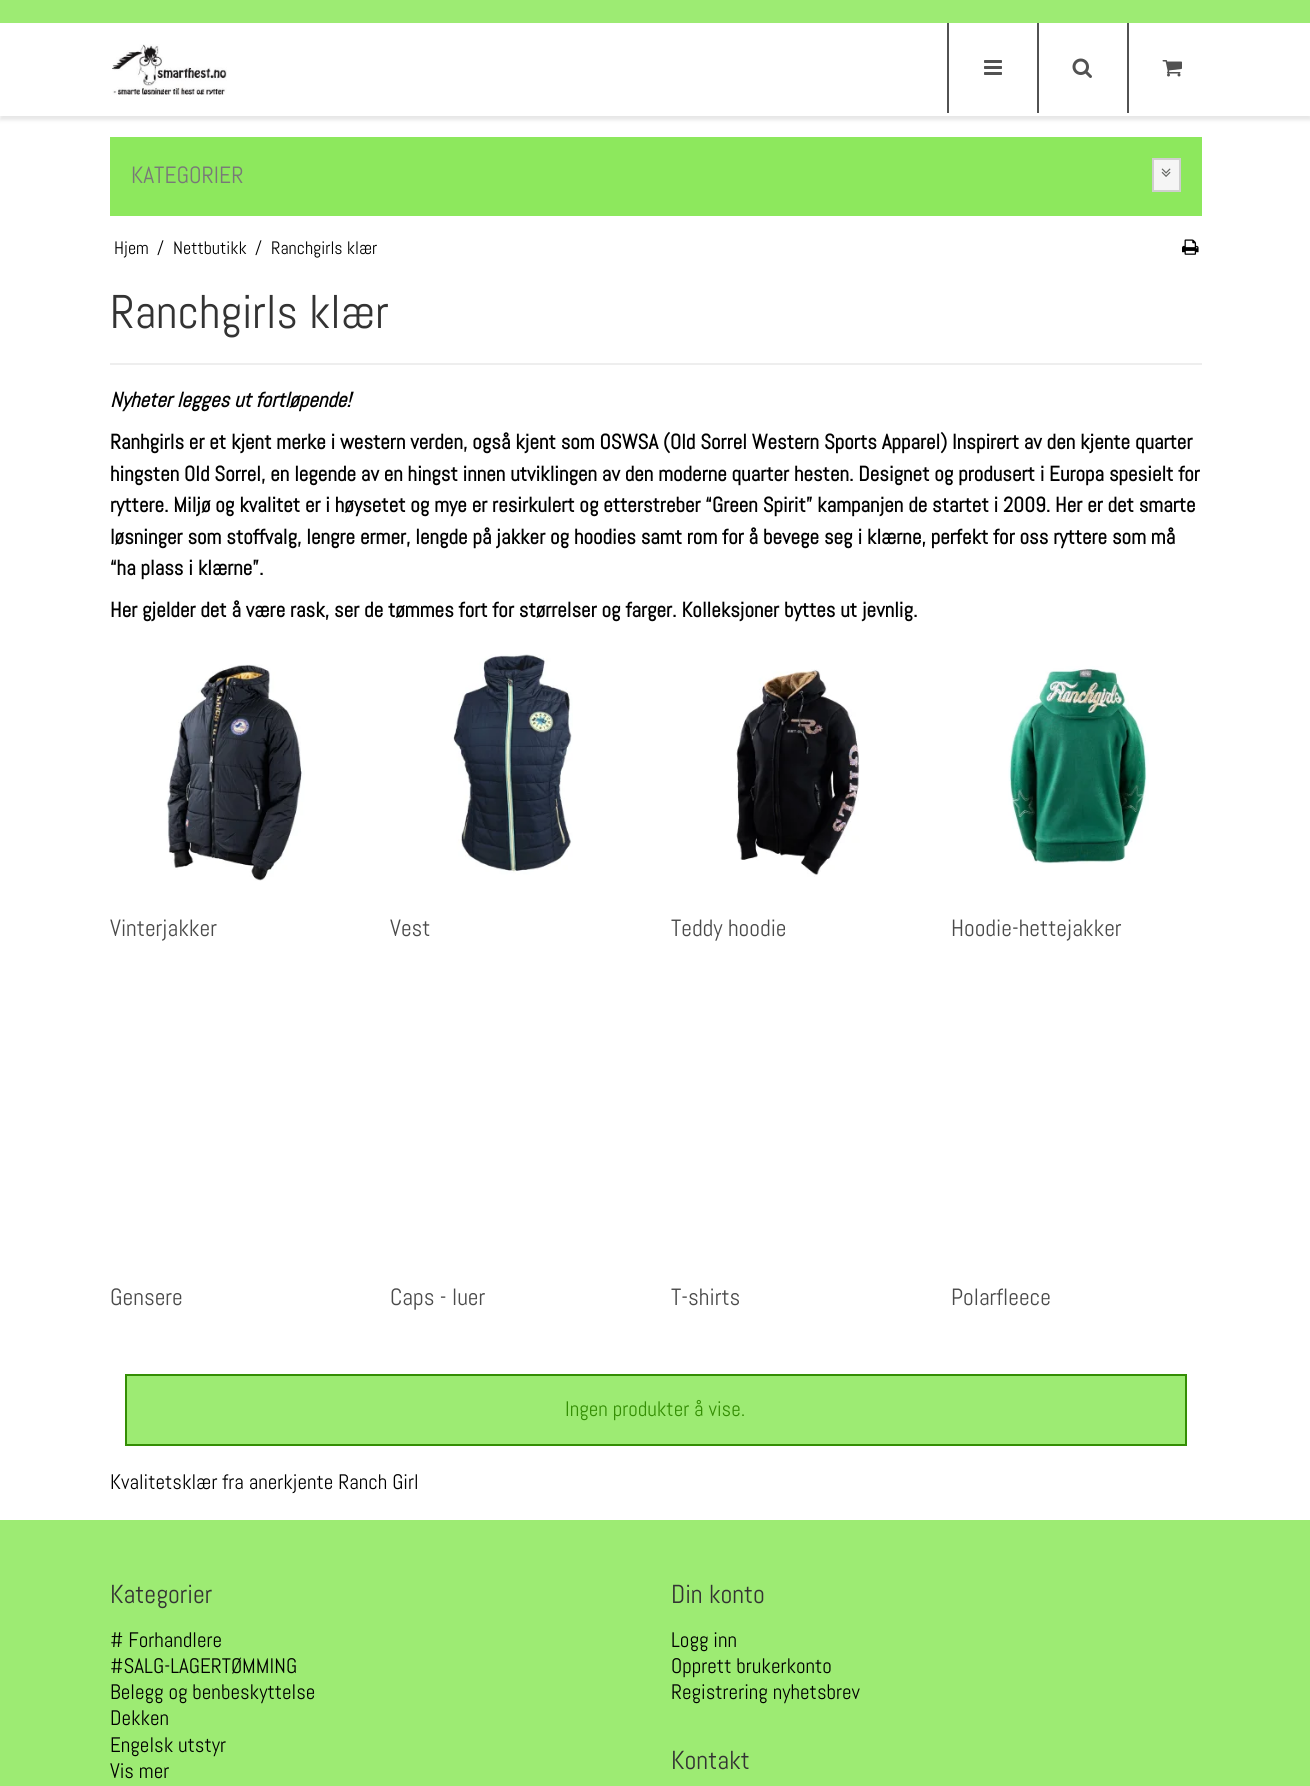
#include <cairo.h>
#include <math.h>
#include <stddef.h>


static void rgb(cairo_t *cr, int r, int g, int b)
{
	cairo_set_source_rgb(cr, r / 255.0, g / 255.0, b / 255.0);
}

static void face(cairo_t *cr, const char *family, double size, int italic, int bold)
{
	cairo_select_font_face(cr, family, italic ? CAIRO_FONT_SLANT_ITALIC : CAIRO_FONT_SLANT_NORMAL,
		bold ? CAIRO_FONT_WEIGHT_BOLD : CAIRO_FONT_WEIGHT_NORMAL);
	cairo_set_font_size(cr, size);
}

static void label(cairo_t *cr, double x, double y, const char *s)
{
	cairo_move_to(cr, x, y);
	cairo_show_text(cr, s);
}

static void rect(cairo_t *cr, double x, double y, double w, double h)
{
	cairo_rectangle(cr, x, y, w, h);
	cairo_fill(cr);
}

static void rrect(cairo_t *cr, double x, double y, double w, double h, double r)
{
	cairo_new_sub_path(cr);
	cairo_arc(cr, x + w - r, y + h - r, r, 0, M_PI / 2);
	cairo_arc(cr, x + r, y + h - r, r, M_PI / 2, M_PI);
	cairo_arc(cr, x + r, y + r, r, M_PI, 1.5 * M_PI);
	cairo_arc(cr, x + w - r, y + r, r, 1.5 * M_PI, 2 * M_PI);
	cairo_close_path(cr);
}

static void soft_shadow(cairo_t *cr, double x, double y, double w, double h, double r, double blur, double alpha)
{
	cairo_push_group_with_content(cr, CAIRO_CONTENT_ALPHA);
	cairo_set_operator(cr, CAIRO_OPERATOR_SOURCE);
	for (int i = 15; i >= -15 && fmin(w, h) + blur * i / 3 > 0; i -= 2) {
		double e = blur * i / 6;
		cairo_set_source_rgba(cr, 0, 0, 0, alpha * erfc((i - 1) / 8.5) / 2);
		rrect(cr, x - e, y - e, w + 2 * e, h + 2 * e, fmax(0, fmin(r + e + blur * .6, fmin(w, h) / 2 + e)));
		cairo_fill(cr);
	}
	cairo_pattern_t *soft = cairo_pop_group(cr);
	cairo_mask(cr, soft);
	cairo_pattern_destroy(soft);
}

static void image(cairo_t *cr, const char *path, double x, double y, double w, double h)
{
	cairo_surface_t *image = cairo_image_surface_create_from_png(path);
	cairo_save(cr);
	cairo_set_source_surface(cr, image, x, y);
	cairo_rectangle(cr, x, y, w, h);
	cairo_fill(cr);
	cairo_restore(cr);
	cairo_surface_destroy(image);
}

static void draw(cairo_t *cr) {
	rgb(cr, 255, 255, 255);
	cairo_paint(cr);
	rgb(cr, 157, 235, 115);
	rect(cr, 0, 0, 1310, 23);
	rgb(cr, 0, 0, 0);
	soft_shadow(cr, 0, 27, 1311, 93, 0, 2, 0.1);
	rgb(cr, 255, 255, 255);
	rect(cr, 0, 24, 1310, 92);
	image(cr, "image0.png", 112, 44, 115, 51);
	rgb(cr, 82, 82, 82);
	rect(cr, 947, 23, 2, 90);
	image(cr, "image1.png", 984, 60, 18, 15);
	rect(cr, 1037, 23, 2, 90);
	image(cr, "image2.png", 1072, 58, 20, 20);
	rect(cr, 1127, 23, 2, 90);
	image(cr, "image3.png", 1162, 60, 20, 17);
	rgb(cr, 141, 232, 93);
	rect(cr, 110, 137, 1092, 79);
	face(cr, "Abel", 23.5, 0, 0);
	rgb(cr, 120, 120, 120);
	label(cr, 131, 183, "KATEGORIER");
	rgb(cr, 245, 245, 245);
	cairo_rectangle(cr, 1153, 159, 27, 32);
	cairo_fill_preserve(cr);
	rgb(cr, 207, 207, 207);
	cairo_stroke(cr);
	image(cr, "image4.png", 1161, 168, 10, 9);
	face(cr, "Abel", 18, 0, 0);
	rgb(cr, 0, 0, 0);
	label(cr, 114, 254, "Hjem");
	label(cr, 157, 254, "/");
	label(cr, 173, 254, "Nettbutikk");
	label(cr, 255, 254, "/");
	label(cr, 271, 254, "Ranchgirls klær");
	image(cr, "image5.png", 1182, 239, 17, 16);
	rgb(cr, 238, 238, 238);
	rect(cr, 110, 363, 1092, 2);
	face(cr, "Abel", 47.25, 0, 0);
	rgb(cr, 51, 51, 51);
	label(cr, 110, 328, "Ranchgirls klær");
	face(cr, "Abel", 21, 1, 1);
	rgb(cr, 0, 0, 0);
	label(cr, 110, 407, "Nyheter legges ut fortløpende!");
	face(cr, "Abel", 21, 0, 1);
	label(cr, 110, 449, "Ranhgirls er et kjent merke i western verden, også kjent som OSWSA (Old Sorrel Western Sports Apparel) Inspirert av den kjente quarter");
	label(cr, 110, 481, "hingsten Old Sorrel, en legende av en hingst innen utviklingen av den moderne quarter hesten. Designet og produsert i Europa spesielt for");
	label(cr, 110, 512, "ryttere. Miljø og kvalitet er i høysetet og mye er resirkulert og etterstreber “Green Spirit” kampanjen de startet i 2009. Her er det smarte");
	label(cr, 110, 544, "løsninger som stoffvalg, lengre ermer, lengde på jakker og hoodies samt rom for å bevege seg i klærne, perfekt for oss ryttere som må");
	label(cr, 110, 575, "“ha plass i klærne”.");
	label(cr, 110, 617, "Her gjelder det å være rask, ser de tømmes fort for størrelser og farger. Kolleksjoner byttes ut jevnlig.");
	image(cr, "image6.png", 166, 664, 139, 217);
	face(cr, "Abel", 23.5, 0, 0);
	rgb(cr, 74, 74, 74);
	label(cr, 110, 936, "Vinterjakker");
	image(cr, "image7.png", 453, 654, 120, 221);
	label(cr, 390, 936, "Vest");
	image(cr, "image8.png", 736, 669, 124, 208);
	label(cr, 671, 936, "Teddy hoodie");
	image(cr, "image9.png", 1008, 666, 141, 198);
	label(cr, 951, 936, "Hoodie-hettejakker");
	label(cr, 110, 1305, "Gensere");
	label(cr, 390, 1305, "Caps - luer");
	label(cr, 671, 1305, "T-shirts");
	label(cr, 951, 1305, "Polarfleece");
	rgb(cr, 157, 235, 115);
	cairo_rectangle(cr, 126, 1375, 1060, 70);
	cairo_fill_preserve(cr);
	rgb(cr, 52, 142, 4);
	cairo_stroke(cr);
	face(cr, "Abel", 21, 0, 0);
	label(cr, 565, 1416, "Ingen produkter å vise.");
	rgb(cr, 0, 0, 0);
	label(cr, 110, 1489, "Kvalitetsklær fra anerkjente Ranch Girl");
	rgb(cr, 157, 235, 115);
	rect(cr, 0, 1520, 1310, 266);
	face(cr, "Abel", 26, 0, 0);
	rgb(cr, 51, 51, 51);
	label(cr, 110, 1603, "Kategorier");
	face(cr, "Abel", 21, 0, 0);
	rgb(cr, 0, 0, 0);
	label(cr, 110, 1647, "# Forhandlere");
	label(cr, 110, 1673, "#SALG-LAGERTØMMING");
	label(cr, 110, 1699, "Belegg og benbeskyttelse");
	label(cr, 110, 1725, "Dekken");
	label(cr, 110, 1752, "Engelsk utstyr");
	label(cr, 110, 1778, "Vis mer");
	face(cr, "Abel", 26, 0, 0);
	rgb(cr, 51, 51, 51);
	label(cr, 671, 1603, "Din konto");
	face(cr, "Abel", 21, 0, 0);
	rgb(cr, 0, 0, 0);
	label(cr, 671, 1647, "Logg inn");
	label(cr, 671, 1673, "Opprett brukerkonto");
	label(cr, 671, 1699, "Registrering nyhetsbrev");
	face(cr, "Abel", 26, 0, 0);
	rgb(cr, 51, 51, 51);
	label(cr, 671, 1769, "Kontakt");
}

int main(void) {
	cairo_surface_t *surface = cairo_image_surface_create(CAIRO_FORMAT_RGB24, 1310, 1786);
	cairo_t *cr = cairo_create(surface);
	cairo_font_options_t *options = cairo_font_options_create();
	cairo_font_options_set_hint_metrics(options, CAIRO_HINT_METRICS_OFF);
	cairo_font_options_set_hint_style(options, CAIRO_HINT_STYLE_NONE);
	cairo_set_font_options(cr, options);
	cairo_set_miter_limit(cr, 4);
	draw(cr);
	cairo_surface_write_to_png(surface, "render.png");
	cairo_font_options_destroy(options);
	cairo_destroy(cr);
	cairo_surface_destroy(surface);
	return 0;
}
